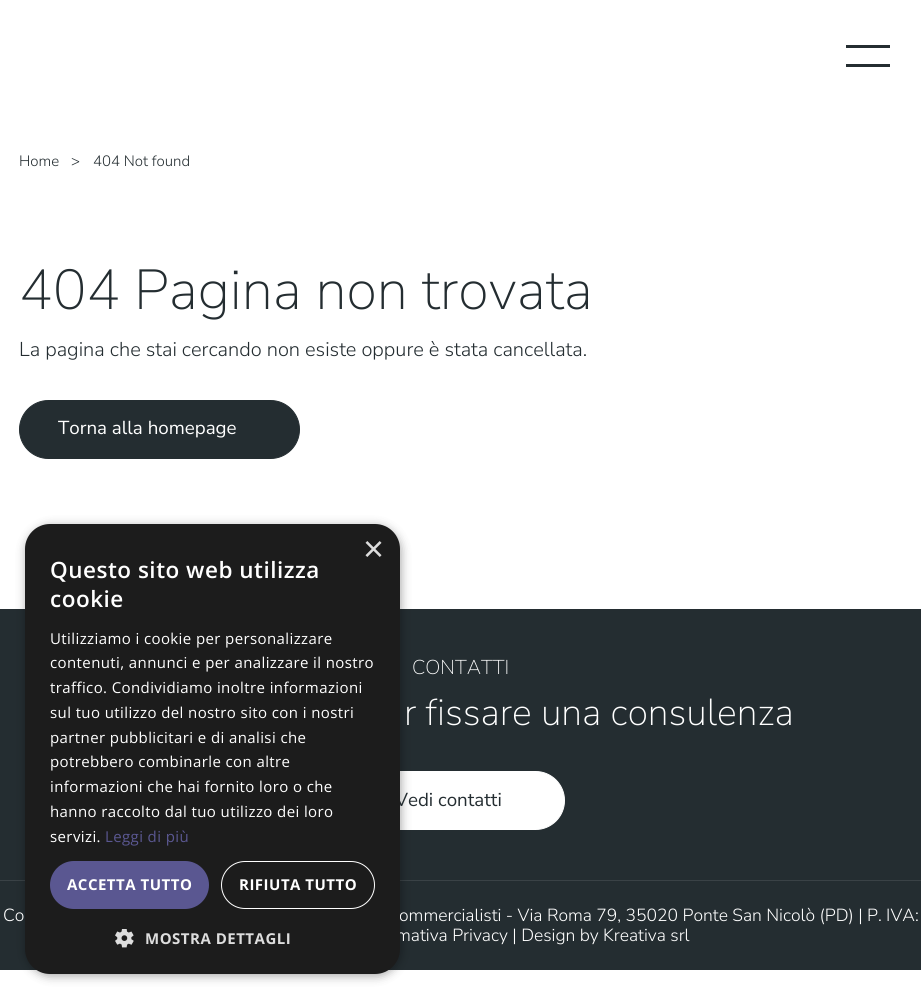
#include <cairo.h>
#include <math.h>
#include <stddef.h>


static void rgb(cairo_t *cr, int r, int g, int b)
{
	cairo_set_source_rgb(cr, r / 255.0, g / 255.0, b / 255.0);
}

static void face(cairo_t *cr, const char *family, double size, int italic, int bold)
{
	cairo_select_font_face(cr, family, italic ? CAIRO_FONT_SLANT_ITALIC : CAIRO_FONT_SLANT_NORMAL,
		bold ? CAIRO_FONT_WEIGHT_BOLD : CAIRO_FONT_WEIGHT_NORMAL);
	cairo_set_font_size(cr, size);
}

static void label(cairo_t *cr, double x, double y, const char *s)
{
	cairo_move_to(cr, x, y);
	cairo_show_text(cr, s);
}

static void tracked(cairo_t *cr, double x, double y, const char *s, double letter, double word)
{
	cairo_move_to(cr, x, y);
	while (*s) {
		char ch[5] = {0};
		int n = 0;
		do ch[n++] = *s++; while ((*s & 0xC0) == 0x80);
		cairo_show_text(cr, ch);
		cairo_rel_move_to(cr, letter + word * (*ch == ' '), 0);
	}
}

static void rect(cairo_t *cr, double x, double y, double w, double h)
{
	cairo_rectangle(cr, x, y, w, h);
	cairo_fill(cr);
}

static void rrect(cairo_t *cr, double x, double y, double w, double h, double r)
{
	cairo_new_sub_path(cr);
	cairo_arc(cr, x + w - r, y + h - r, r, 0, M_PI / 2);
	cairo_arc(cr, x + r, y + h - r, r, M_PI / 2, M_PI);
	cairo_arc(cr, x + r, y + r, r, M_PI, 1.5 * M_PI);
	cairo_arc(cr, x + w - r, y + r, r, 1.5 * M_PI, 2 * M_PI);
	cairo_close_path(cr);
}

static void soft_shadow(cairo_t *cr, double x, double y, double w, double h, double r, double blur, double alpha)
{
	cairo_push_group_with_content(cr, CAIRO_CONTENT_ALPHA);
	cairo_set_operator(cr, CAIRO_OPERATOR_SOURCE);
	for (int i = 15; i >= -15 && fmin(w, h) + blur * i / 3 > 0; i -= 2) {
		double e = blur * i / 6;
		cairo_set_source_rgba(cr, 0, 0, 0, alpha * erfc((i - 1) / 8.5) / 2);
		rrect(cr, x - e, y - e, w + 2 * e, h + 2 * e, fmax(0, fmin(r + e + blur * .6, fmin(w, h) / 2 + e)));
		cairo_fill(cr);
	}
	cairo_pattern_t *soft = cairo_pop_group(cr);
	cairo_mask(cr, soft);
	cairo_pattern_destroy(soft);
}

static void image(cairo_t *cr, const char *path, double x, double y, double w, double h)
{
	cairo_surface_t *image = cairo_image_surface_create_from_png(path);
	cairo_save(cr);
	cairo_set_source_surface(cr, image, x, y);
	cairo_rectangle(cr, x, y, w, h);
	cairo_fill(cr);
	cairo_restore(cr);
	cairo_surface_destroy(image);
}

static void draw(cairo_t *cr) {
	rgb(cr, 255, 255, 255);
	cairo_paint(cr);
	rgb(cr, 36, 45, 49);
	rect(cr, 846, 45, 44, 3);
	rect(cr, 846, 64, 44, 3);
	face(cr, "Nunito Sans Light", 15, 0, 0);
	label(cr, 19, 166, "Home");
	label(cr, 71, 166, ">");
	label(cr, 93, 166, "404 Not found");
	face(cr, "Nunito Sans ExtraLight", 56.25, 0, 0);
	label(cr, 19, 309, "404 Pagina non trovata");
	face(cr, "Nunito Sans Light", 20, 0, 0);
	label(cr, 19, 356, "La pagina che stai cercando non esiste oppure è stata cancellata.");
	rrect(cr, 19.5, 400.5, 280, 58, 29);
	cairo_fill_preserve(cr);
	cairo_set_line_width(cr, 1);
	cairo_stroke(cr);
	face(cr, "Nunito Sans", 18.75, 0, 0);
	rgb(cr, 255, 255, 255);
	label(cr, 58, 434, "Torna alla homepage");
	rgb(cr, 36, 45, 49);
	rect(cr, 0, 609, 921, 361);
	rgb(cr, 255, 255, 255);
	rrect(cr, 356.5, 771.5, 208, 58, 29);
	cairo_fill_preserve(cr);
	cairo_stroke(cr);
	rgb(cr, 58, 66, 70);
	rect(cr, 0, 880, 921, 1);
	rgb(cr, 0, 0, 0);
	soft_shadow(cr, 26, 526, 375, 450, 25, 5, 0.35);
	rgb(cr, 36, 45, 49);
	label(cr, 395, 806, "Vedi contatti");
	face(cr, "Nunito Sans Light", 17.5, 0, 0);
	rgb(cr, 255, 255, 255);
	label(cr, 399, 921, "ommercialisti - Via Roma 79, 35020 Ponte San Nicolò (PD) | P. IVA:");
	label(cr, 396, 941, "mativa Privacy | Design by Kreativa srl");
	rgb(cr, 28, 28, 28);
	rrect(cr, 25, 524, 375, 450, 25);
	cairo_fill(cr);
	face(cr, "Liberation Sans", 36, 0, 0);
	rgb(cr, 221, 221, 221);
	label(cr, 363, 561, "×");
	face(cr, "Open Sans SemiBold", 22.5, 0, 0);
	rgb(cr, 255, 255, 255);
	tracked(cr, 50, 578, "Questo sito web utilizza", 0.5, 0);
	tracked(cr, 50, 607, "cookie", 0.5, 0);
	face(cr, "Open Sans", 15, 0, 0);
	tracked(cr, 50, 644, "Utilizziamo i cookie per personalizzare", 0.4, 0);
	tracked(cr, 50, 668, "contenuti, annunci e per analizzare il nostro", 0.4, 0);
	tracked(cr, 50, 693, "traffico. Condividiamo inoltre informazioni", 0.4, 0);
	tracked(cr, 50, 718, "sul tuo utilizzo del nostro sito con i nostri", 0.4, 0);
	tracked(cr, 50, 743, "partner pubblicitari e di analisi che", 0.4, 0);
	tracked(cr, 50, 767, "potrebbero combinarle con altre", 0.4, 0);
	tracked(cr, 50, 792, "informazioni che hai fornito loro o che", 0.4, 0);
	tracked(cr, 50, 817, "hanno raccolto dal tuo utilizzo dei loro", 0.4, 0);
	tracked(cr, 50, 842, "servizi.", 0.4, 0);
	rgb(cr, 90, 87, 145);
	tracked(cr, 105, 842, "Leggi di più", 0.4, 0);
	rrect(cr, 50, 861, 159, 48, 24);
	cairo_fill(cr);
	face(cr, "Open Sans", 15, 0, 1);
	rgb(cr, 255, 255, 255);
	tracked(cr, 67, 890, "ACCETTA TUTTO", 0.5, 0);
	rrect(cr, 221.5, 861.5, 153, 47, 23.5);
	cairo_stroke(cr);
	tracked(cr, 239, 890, "RIFIUTA TUTTO", 0.5, 0);
	image(cr, "image0.png", 115, 929, 19, 19);
	rgb(cr, 221, 221, 221);
	tracked(cr, 145, 944, "MOSTRA DETTAGLI", 0.5, 0);
	face(cr, "Nunito Sans ExtraLight", 20, 0, 0);
	rgb(cr, 255, 255, 255);
	label(cr, 412, 674, "CONTATTI");
	face(cr, "Nunito Sans ExtraLight", 37.5, 0, 0);
	label(cr, 404, 725, "r fissare una consulenza");
	face(cr, "Nunito Sans Light", 17.5, 0, 0);
	label(cr, 3, 921, "Co");
}

int main(void) {
	cairo_surface_t *surface = cairo_image_surface_create(CAIRO_FORMAT_RGB24, 921, 998);
	cairo_t *cr = cairo_create(surface);
	cairo_font_options_t *options = cairo_font_options_create();
	cairo_font_options_set_hint_metrics(options, CAIRO_HINT_METRICS_OFF);
	cairo_font_options_set_hint_style(options, CAIRO_HINT_STYLE_NONE);
	cairo_set_font_options(cr, options);
	cairo_set_miter_limit(cr, 4);
	draw(cr);
	cairo_surface_write_to_png(surface, "render.png");
	cairo_font_options_destroy(options);
	cairo_destroy(cr);
	cairo_surface_destroy(surface);
	return 0;
}
